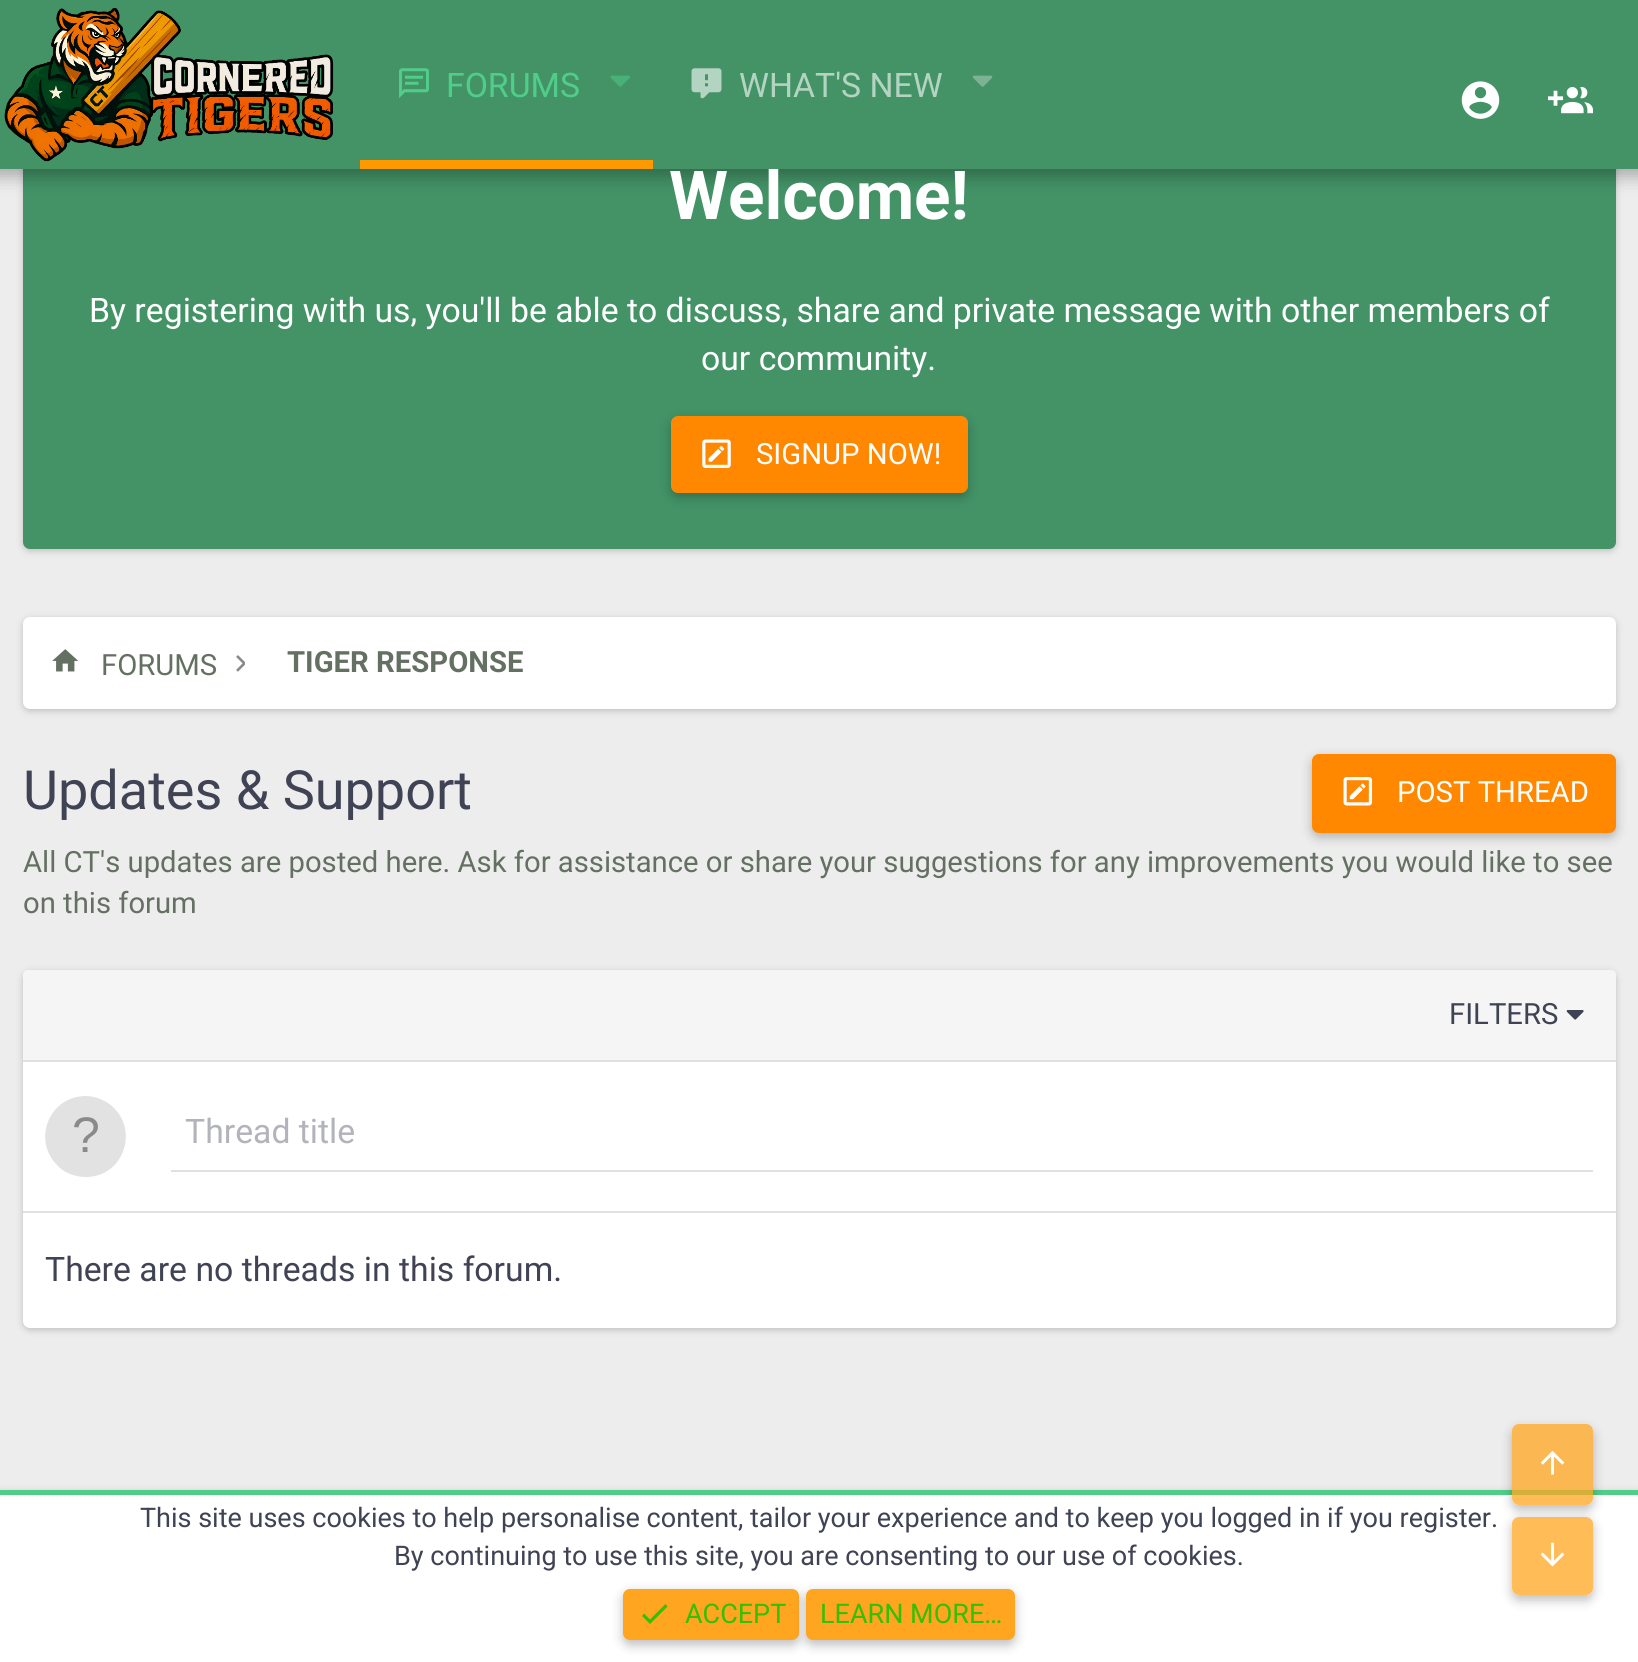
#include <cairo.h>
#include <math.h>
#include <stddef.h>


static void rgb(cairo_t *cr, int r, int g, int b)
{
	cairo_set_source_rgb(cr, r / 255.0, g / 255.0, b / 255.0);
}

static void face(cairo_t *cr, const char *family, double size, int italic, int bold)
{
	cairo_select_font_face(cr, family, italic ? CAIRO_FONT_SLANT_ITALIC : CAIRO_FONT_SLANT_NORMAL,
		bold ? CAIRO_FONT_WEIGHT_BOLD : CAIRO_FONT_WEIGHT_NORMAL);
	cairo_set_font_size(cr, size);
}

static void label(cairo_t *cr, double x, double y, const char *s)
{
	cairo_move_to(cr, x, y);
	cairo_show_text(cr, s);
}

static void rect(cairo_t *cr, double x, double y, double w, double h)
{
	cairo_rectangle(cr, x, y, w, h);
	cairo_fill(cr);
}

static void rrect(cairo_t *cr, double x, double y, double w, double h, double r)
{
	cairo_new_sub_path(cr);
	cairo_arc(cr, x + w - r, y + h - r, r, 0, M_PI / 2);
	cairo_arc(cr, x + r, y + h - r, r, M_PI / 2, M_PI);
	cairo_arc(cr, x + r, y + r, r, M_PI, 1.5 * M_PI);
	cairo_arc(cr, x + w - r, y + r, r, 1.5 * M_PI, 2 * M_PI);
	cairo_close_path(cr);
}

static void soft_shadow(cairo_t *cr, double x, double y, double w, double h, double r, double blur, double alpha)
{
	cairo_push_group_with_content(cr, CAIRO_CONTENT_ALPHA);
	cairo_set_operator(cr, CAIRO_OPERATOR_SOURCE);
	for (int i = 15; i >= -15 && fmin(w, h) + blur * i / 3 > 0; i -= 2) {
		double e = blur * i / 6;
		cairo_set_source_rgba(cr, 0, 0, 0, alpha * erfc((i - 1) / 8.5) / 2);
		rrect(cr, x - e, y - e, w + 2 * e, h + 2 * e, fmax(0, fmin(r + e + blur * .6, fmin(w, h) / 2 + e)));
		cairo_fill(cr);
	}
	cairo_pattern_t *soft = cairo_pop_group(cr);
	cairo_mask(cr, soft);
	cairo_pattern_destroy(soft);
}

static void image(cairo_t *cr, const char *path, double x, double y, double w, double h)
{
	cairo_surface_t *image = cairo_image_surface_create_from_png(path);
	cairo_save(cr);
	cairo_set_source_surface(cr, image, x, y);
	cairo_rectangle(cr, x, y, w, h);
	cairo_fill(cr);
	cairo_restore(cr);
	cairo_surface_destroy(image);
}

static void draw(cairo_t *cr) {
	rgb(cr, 237, 237, 237);
	cairo_paint(cr);
	rgb(cr, 0, 0, 0);
	soft_shadow(cr, 23, 95, 1593, 456, 7, 3.5, 0.2);
	rgb(cr, 67, 147, 103);
	rrect(cr, 23, 92, 1593, 457, 7);
	cairo_fill(cr);
	rgb(cr, 0, 0, 0);
	soft_shadow(cr, -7, -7, 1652, 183, 0, 9, 0.3);
	face(cr, "Roboto", 67.5, 0, 1);
	rgb(cr, 255, 255, 255);
	label(cr, 669, 219, "Welcome!");
	rgb(cr, 67, 147, 103);
	rect(cr, 0, 0, 1638, 169);
	image(cr, "image0.png", 4, 7, 330, 155);
	rgb(cr, 255, 153, 0);
	rect(cr, 360, 160, 293, 9);
	image(cr, "image1.png", 399, 68, 30, 30);
	face(cr, "Roboto", 33.75, 0, 0);
	rgb(cr, 80, 206, 137);
	label(cr, 446, 97, "FORUMS");
	image(cr, "image2.png", 610, 75, 20, 12);
	image(cr, "image3.png", 691, 68, 31, 31);
	rgb(cr, 180, 212, 194);
	label(cr, 739, 97, "WHAT'S NEW");
	image(cr, "image4.png", 972, 75, 21, 12);
	image(cr, "image5.png", 1461, 81, 39, 38);
	image(cr, "image6.png", 1548, 87, 45, 27);
	rgb(cr, 255, 255, 255);
	label(cr, 89, 322, "By registering with us, you'll be able to discuss, share and private message with other members of");
	label(cr, 701, 370, "our community.");
	rgb(cr, 0, 0, 0);
	soft_shadow(cr, 671, 421, 297, 76, 7, 5.5, 0.26);
	rgb(cr, 255, 136, 0);
	rrect(cr, 671, 416, 297, 77, 7);
	cairo_fill(cr);
	image(cr, "image7.png", 702, 439, 29, 29);
	face(cr, "Roboto", 29.25, 0, 0);
	rgb(cr, 255, 255, 255);
	label(cr, 756, 464, "SIGNUP NOW!");
	rgb(cr, 0, 0, 0);
	soft_shadow(cr, 23, 619, 1593, 92, 7, 3.5, 0.2);
	rgb(cr, 255, 255, 255);
	rrect(cr, 23, 617, 1593, 92, 7);
	cairo_fill(cr);
	image(cr, "image8.png", 52, 649, 27, 23);
	rgb(cr, 100, 113, 98);
	label(cr, 101, 675, "FORUMS");
	image(cr, "image9.png", 236, 655, 9, 17);
	face(cr, "Roboto", 29.25, 0, 1);
	label(cr, 287, 672, "TIGER RESPONSE");
	face(cr, "Roboto", 54, 0, 0);
	rgb(cr, 64, 67, 84);
	label(cr, 23, 809, "Updates & Support");
	rgb(cr, 0, 0, 0);
	soft_shadow(cr, 1312, 758, 304, 79, 7, 5.5, 0.26);
	rgb(cr, 255, 136, 0);
	rrect(cr, 1312, 754, 304, 79, 7);
	cairo_fill(cr);
	image(cr, "image10.png", 1343, 777, 30, 29);
	face(cr, "Roboto", 29.25, 0, 0);
	rgb(cr, 255, 255, 255);
	label(cr, 1397, 802, "POST THREAD");
	rgb(cr, 100, 113, 98);
	label(cr, 23, 872, "All CT's updates are posted here. Ask for assistance or share your suggestions for any improvements you would like to see");
	label(cr, 23, 913, "on this forum");
	rgb(cr, 0, 0, 0);
	soft_shadow(cr, 23, 972, 1593, 358, 7, 3.5, 0.2);
	rgb(cr, 255, 255, 255);
	rrect(cr, 23, 970, 1593, 358, 7);
	cairo_fill(cr);
	rgb(cr, 245, 245, 245);
	cairo_new_path(cr);
	cairo_move_to(cr, 28, 970);
	cairo_line_to(cr, 1611, 970);
	cairo_curve_to(cr, 1614, 970, 1616, 972, 1616, 975);
	cairo_line_to(cr, 1616, 1062);
	cairo_line_to(cr, 23, 1062);
	cairo_line_to(cr, 23, 975);
	cairo_curve_to(cr, 23, 972, 25, 970, 28, 970);
	cairo_close_path(cr);
	cairo_fill(cr);
	rgb(cr, 224, 224, 224);
	rect(cr, 23, 1060, 1593, 2);
	rgb(cr, 64, 67, 84);
	label(cr, 1449, 1024, "FILTERS");
	image(cr, "image11.png", 1566, 1010, 18, 10);
	rgb(cr, 226, 226, 226);
	cairo_new_path(cr);
	cairo_move_to(cr, 86, 1096);
	cairo_curve_to(cr, 49, 1096, 32, 1140, 57, 1165);
	cairo_curve_to(cr, 64, 1173, 75, 1177, 86, 1177);
	cairo_curve_to(cr, 122, 1177, 139, 1133, 114, 1108);
	cairo_curve_to(cr, 107, 1101, 96, 1096, 86, 1096);
	cairo_close_path(cr);
	cairo_fill(cr);
	face(cr, "Liberation Sans", 50, 0, 0);
	rgb(cr, 138, 138, 138);
	label(cr, 72, 1152, "?");
	rgb(cr, 224, 224, 224);
	rect(cr, 171, 1170, 1422, 2);
	face(cr, "Roboto", 33.75, 0, 0);
	rgb(cr, 179, 180, 187);
	label(cr, 185, 1143, "Thread title");
	rgb(cr, 224, 224, 224);
	rect(cr, 23, 1211, 1593, 2);
	rgb(cr, 64, 67, 84);
	label(cr, 45, 1281, "There are no threads in this forum.");
	rgb(cr, 0, 0, 0);
	soft_shadow(cr, 0, 1492, 1638, 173, 0, 3.5, 0.2);
	rgb(cr, 255, 255, 255);
	rect(cr, 0, 1495, 1638, 167);
	rgb(cr, 80, 206, 137);
	rect(cr, 0, 1490, 1638, 5);
	face(cr, "Roboto", 27, 0, 0);
	rgb(cr, 64, 67, 84);
	label(cr, 140, 1527, "This site uses cookies to help personalise content, tailor your experience and to keep you logged in if you register.");
	label(cr, 394, 1565, "By continuing to use this site, you are consenting to our use of cookies.");
	rgb(cr, 0, 0, 0);
	soft_shadow(cr, 623, 1593, 176, 52, 7, 5.5, 0.26);
	rgb(cr, 255, 165, 31);
	rrect(cr, 623, 1589, 176, 51, 7);
	cairo_fill(cr);
	rgb(cr, 49, 193, 1);
	cairo_new_path(cr);
	cairo_move_to(cr, 667.5, 1606.5);
	cairo_line_to(cr, 650, 1624);
	cairo_line_to(cr, 642, 1616);
	cairo_line_to(cr, 644, 1613.5);
	cairo_line_to(cr, 650, 1619.5);
	cairo_line_to(cr, 665.5, 1604);
	cairo_close_path(cr);
	cairo_fill(cr);
	label(cr, 685, 1623, "ACCEPT");
	rgb(cr, 0, 0, 0);
	soft_shadow(cr, 806, 1593, 209, 52, 7, 5.5, 0.26);
	rgb(cr, 255, 165, 31);
	rrect(cr, 806, 1589, 209, 51, 7);
	cairo_fill(cr);
	rgb(cr, 49, 193, 1);
	label(cr, 820, 1623, "LEARN MORE…");
	cairo_save(cr);
	cairo_set_fill_rule(cr, CAIRO_FILL_RULE_EVEN_ODD);
	cairo_new_path(cr);
	cairo_move_to(cr, 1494, 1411);
	cairo_line_to(cr, 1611, 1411);
	cairo_line_to(cr, 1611, 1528);
	cairo_line_to(cr, 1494, 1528);
	cairo_close_path(cr);
	cairo_move_to(cr, 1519, 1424);
	cairo_line_to(cr, 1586, 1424);
	cairo_curve_to(cr, 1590, 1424, 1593, 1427, 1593, 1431);
	cairo_line_to(cr, 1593, 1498);
	cairo_curve_to(cr, 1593, 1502, 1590, 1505, 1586, 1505);
	cairo_line_to(cr, 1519, 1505);
	cairo_curve_to(cr, 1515, 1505, 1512, 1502, 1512, 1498);
	cairo_line_to(cr, 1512, 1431);
	cairo_curve_to(cr, 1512, 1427, 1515, 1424, 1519, 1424);
	cairo_close_path(cr);
	cairo_clip(cr);
	rgb(cr, 0, 0, 0);
	soft_shadow(cr, 1512, 1429, 81, 81, 7, 5.5, 0.26);
	cairo_restore(cr);
	cairo_set_source_rgba(cr, 1, 0.647, 0.122, 0.75);
	rrect(cr, 1512, 1424, 81, 81, 7);
	cairo_fill(cr);
	image(cr, "image12.png", 1540, 1450, 25, 25);
	cairo_save(cr);
	cairo_set_fill_rule(cr, CAIRO_FILL_RULE_EVEN_ODD);
	cairo_new_path(cr);
	cairo_move_to(cr, 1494, 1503);
	cairo_line_to(cr, 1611, 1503);
	cairo_line_to(cr, 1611, 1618);
	cairo_line_to(cr, 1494, 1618);
	cairo_close_path(cr);
	cairo_move_to(cr, 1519, 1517);
	cairo_line_to(cr, 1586, 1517);
	cairo_curve_to(cr, 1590, 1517, 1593, 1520, 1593, 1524);
	cairo_line_to(cr, 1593, 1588);
	cairo_curve_to(cr, 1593, 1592, 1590, 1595, 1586, 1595);
	cairo_line_to(cr, 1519, 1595);
	cairo_curve_to(cr, 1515, 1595, 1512, 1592, 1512, 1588);
	cairo_line_to(cr, 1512, 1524);
	cairo_curve_to(cr, 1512, 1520, 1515, 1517, 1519, 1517);
	cairo_close_path(cr);
	cairo_clip(cr);
	rgb(cr, 0, 0, 0);
	soft_shadow(cr, 1512, 1521, 81, 79, 7, 5.5, 0.26);
	cairo_restore(cr);
	rrect(cr, 1512, 1517, 81, 78, 7);
	cairo_fill(cr);
	image(cr, "image13.png", 1540, 1542, 25, 25);
}

int main(void) {
	cairo_surface_t *surface = cairo_image_surface_create(CAIRO_FORMAT_RGB24, 1638, 1662);
	cairo_t *cr = cairo_create(surface);
	cairo_font_options_t *options = cairo_font_options_create();
	cairo_font_options_set_hint_metrics(options, CAIRO_HINT_METRICS_OFF);
	cairo_font_options_set_hint_style(options, CAIRO_HINT_STYLE_NONE);
	cairo_set_font_options(cr, options);
	cairo_set_miter_limit(cr, 4);
	draw(cr);
	cairo_surface_write_to_png(surface, "render.png");
	cairo_font_options_destroy(options);
	cairo_destroy(cr);
	cairo_surface_destroy(surface);
	return 0;
}
